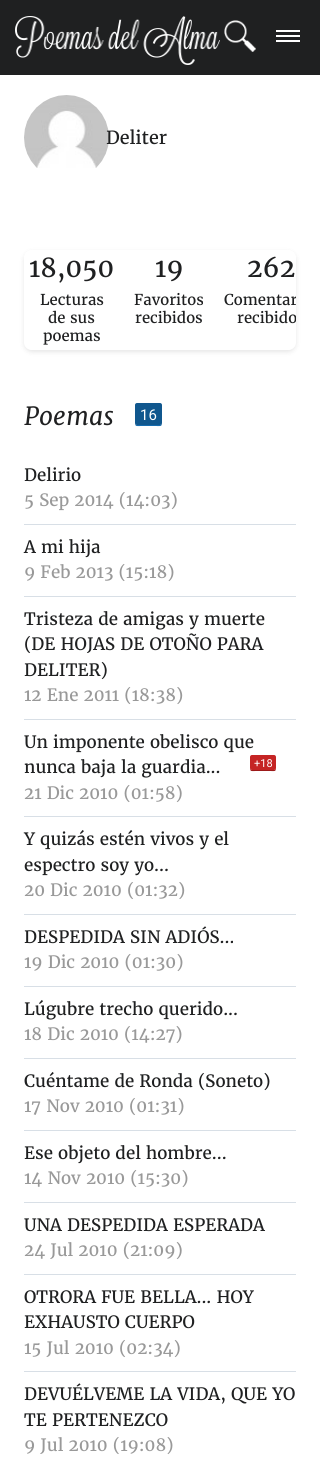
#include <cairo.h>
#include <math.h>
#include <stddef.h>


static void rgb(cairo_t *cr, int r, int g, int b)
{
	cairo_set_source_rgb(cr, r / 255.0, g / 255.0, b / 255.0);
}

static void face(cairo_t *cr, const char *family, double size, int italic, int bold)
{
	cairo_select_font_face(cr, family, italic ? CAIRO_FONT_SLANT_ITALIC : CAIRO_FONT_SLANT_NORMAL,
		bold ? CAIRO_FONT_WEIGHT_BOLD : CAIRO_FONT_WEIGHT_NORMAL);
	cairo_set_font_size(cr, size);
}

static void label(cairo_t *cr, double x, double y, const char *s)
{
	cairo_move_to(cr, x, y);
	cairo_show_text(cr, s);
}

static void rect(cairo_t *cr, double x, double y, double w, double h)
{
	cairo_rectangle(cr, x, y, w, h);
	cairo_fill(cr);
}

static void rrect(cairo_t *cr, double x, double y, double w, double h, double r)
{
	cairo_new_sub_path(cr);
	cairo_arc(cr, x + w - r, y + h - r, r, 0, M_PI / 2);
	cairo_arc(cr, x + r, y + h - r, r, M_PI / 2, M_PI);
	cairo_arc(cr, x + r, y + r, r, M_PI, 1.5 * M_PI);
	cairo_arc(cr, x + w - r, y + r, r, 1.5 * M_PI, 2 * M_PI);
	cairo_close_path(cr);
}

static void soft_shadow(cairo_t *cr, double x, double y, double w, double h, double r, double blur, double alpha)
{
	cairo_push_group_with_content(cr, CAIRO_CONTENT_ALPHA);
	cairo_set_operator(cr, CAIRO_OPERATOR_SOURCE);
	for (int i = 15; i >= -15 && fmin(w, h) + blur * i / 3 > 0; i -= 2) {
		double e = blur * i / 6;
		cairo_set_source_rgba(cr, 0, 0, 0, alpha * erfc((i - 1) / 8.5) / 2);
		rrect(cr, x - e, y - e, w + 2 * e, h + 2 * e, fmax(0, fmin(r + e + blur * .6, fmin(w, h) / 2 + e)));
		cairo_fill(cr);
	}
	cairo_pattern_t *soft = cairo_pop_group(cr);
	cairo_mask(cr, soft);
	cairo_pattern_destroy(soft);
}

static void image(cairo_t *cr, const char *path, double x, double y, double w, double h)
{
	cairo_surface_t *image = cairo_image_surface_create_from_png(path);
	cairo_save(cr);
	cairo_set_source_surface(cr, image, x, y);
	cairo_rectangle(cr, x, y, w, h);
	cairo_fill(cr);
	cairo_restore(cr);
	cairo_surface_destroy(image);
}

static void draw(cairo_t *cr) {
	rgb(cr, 31, 32, 33);
	cairo_paint(cr);
	image(cr, "image0.png", 15, 16, 205, 49);
	image(cr, "image1.png", 224, 20, 32, 32);
	rgb(cr, 255, 255, 255);
	rect(cr, 276, 35, 24, 2);
	rect(cr, 276, 30, 24, 2);
	rect(cr, 276, 40, 24, 2);
	rect(cr, 0, 75, 320, 1388);
	image(cr, "image2.png", 24, 95, 85, 73);
	face(cr, "Merriweather", 18, 0, 0);
	rgb(cr, 31, 32, 33);
	label(cr, 106, 144, "Deliter");
	cairo_save(cr);
	cairo_set_fill_rule(cr, CAIRO_FILL_RULE_EVEN_ODD);
	cairo_new_path(cr);
	cairo_move_to(cr, 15, 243);
	cairo_line_to(cr, 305, 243);
	cairo_line_to(cr, 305, 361);
	cairo_line_to(cr, 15, 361);
	cairo_close_path(cr);
	cairo_move_to(cr, 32, 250);
	cairo_line_to(cr, 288, 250);
	cairo_curve_to(cr, 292.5, 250, 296, 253.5, 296, 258);
	cairo_line_to(cr, 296, 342);
	cairo_curve_to(cr, 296, 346.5, 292.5, 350, 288, 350);
	cairo_line_to(cr, 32, 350);
	cairo_curve_to(cr, 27.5, 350, 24, 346.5, 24, 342);
	cairo_line_to(cr, 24, 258);
	cairo_curve_to(cr, 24, 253.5, 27.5, 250, 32, 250);
	cairo_close_path(cr);
	cairo_clip(cr);
	rgb(cr, 0, 0, 0);
	soft_shadow(cr, 24, 252, 272, 100, 8, 2.5, 0.1);
	cairo_restore(cr);
	face(cr, "Merriweather", 26, 0, 0);
	label(cr, 29, 277, "18,050");
	face(cr, "Merriweather", 15, 0, 0);
	label(cr, 40, 305, "Lecturas");
	label(cr, 48, 323, "de sus");
	label(cr, 43, 341, "poemas");
	face(cr, "Merriweather", 26, 0, 0);
	label(cr, 155, 277, "19");
	face(cr, "Merriweather", 15, 0, 0);
	label(cr, 134, 305, "Favoritos");
	label(cr, 135, 323, "recibidos");
	face(cr, "Merriweather", 26, 0, 0);
	label(cr, 247, 277, "262");
	cairo_save(cr);
	rrect(cr, 24, 250, 272, 100, 8);
	cairo_clip(cr);
	face(cr, "Merriweather", 15, 0, 0);
	label(cr, 224, 305, "Comentar");
	label(cr, 237, 323, "recibido");
	cairo_restore(cr);
	face(cr, "Merriweather", 25, 1, 0);
	label(cr, 24, 425, "Poemas");
	rgb(cr, 21, 108, 175);
	cairo_new_path(cr);
	cairo_move_to(cr, 135, 423);
	cairo_curve_to(cr, 135, 427, 137.5, 426, 141, 426);
	cairo_line_to(cr, 156, 426);
	cairo_curve_to(cr, 159.5, 426, 162, 427, 162, 423);
	cairo_curve_to(cr, 162, 424, 161, 425, 160, 425);
	cairo_line_to(cr, 137, 425);
	cairo_curve_to(cr, 136, 425, 135, 424, 135, 423);
	cairo_close_path(cr);
	cairo_fill(cr);
	rgb(cr, 16, 87, 142);
	rrect(cr, 135, 403, 27, 22, 2);
	cairo_fill(cr);
	face(cr, "Roboto", 15, 0, 0);
	rgb(cr, 255, 255, 255);
	label(cr, 140, 420, "16");
	rgb(cr, 216, 223, 230);
	rect(cr, 24, 524, 272, 1);
	face(cr, "Merriweather", 17, 0, 0);
	rgb(cr, 31, 32, 33);
	label(cr, 24, 481, "Delirio");
	rgb(cr, 153, 153, 153);
	label(cr, 24, 506, "5 Sep 2014 (14:03)");
	rgb(cr, 216, 223, 230);
	rect(cr, 24, 596, 272, 1);
	rgb(cr, 31, 32, 33);
	label(cr, 24, 553, "A mi hija");
	rgb(cr, 153, 153, 153);
	label(cr, 24, 578, "9 Feb 2013 (15:18)");
	rgb(cr, 216, 223, 230);
	rect(cr, 24, 719, 272, 1);
	rgb(cr, 31, 32, 33);
	label(cr, 24, 625, "Tristeza de amigas y muerte");
	label(cr, 24, 650, "(DE HOJAS DE OTOÑO PARA");
	label(cr, 24, 676, "DELITER)");
	rgb(cr, 153, 153, 153);
	label(cr, 24, 701, "12 Ene 2011 (18:38)");
	rgb(cr, 216, 223, 230);
	rect(cr, 24, 816, 272, 1);
	rgb(cr, 31, 32, 33);
	label(cr, 24, 748, "Un imponente obelisco que");
	label(cr, 24, 773, "nunca baja la guardia...");
	rgb(cr, 156, 26, 26);
	cairo_new_path(cr);
	cairo_move_to(cr, 250, 768);
	cairo_curve_to(cr, 250, 772, 252, 771, 255.5, 771);
	cairo_line_to(cr, 270.5, 771);
	cairo_curve_to(cr, 274, 771, 276, 772, 276, 768);
	cairo_curve_to(cr, 276, 769, 275, 770, 274, 770);
	cairo_line_to(cr, 252, 770);
	cairo_curve_to(cr, 251, 770, 250, 769, 250, 768);
	cairo_close_path(cr);
	cairo_fill(cr);
	rgb(cr, 197, 36, 36);
	rrect(cr, 250, 755, 26, 15, 2);
	cairo_fill(cr);
	face(cr, "Roboto", 11, 0, 0);
	rgb(cr, 255, 255, 255);
	label(cr, 254, 767, "+18");
	face(cr, "Merriweather", 17, 0, 0);
	rgb(cr, 153, 153, 153);
	label(cr, 24, 799, "21 Dic 2010 (01:58)");
	rgb(cr, 216, 223, 230);
	rect(cr, 24, 914, 272, 1);
	rgb(cr, 31, 32, 33);
	label(cr, 24, 845, "Y quizás estén vivos y el");
	label(cr, 24, 871, "espectro soy yo...");
	rgb(cr, 153, 153, 153);
	label(cr, 24, 896, "20 Dic 2010 (01:32)");
	rgb(cr, 216, 223, 230);
	rect(cr, 24, 986, 272, 1);
	rgb(cr, 31, 32, 33);
	label(cr, 24, 943, "DESPEDIDA SIN ADIÓS...");
	rgb(cr, 153, 153, 153);
	label(cr, 24, 968, "19 Dic 2010 (01:30)");
	rgb(cr, 216, 223, 230);
	rect(cr, 24, 1058, 272, 1);
	rgb(cr, 31, 32, 33);
	label(cr, 24, 1015, "Lúgubre trecho querido...");
	rgb(cr, 153, 153, 153);
	label(cr, 24, 1040, "18 Dic 2010 (14:27)");
	rgb(cr, 216, 223, 230);
	rect(cr, 24, 1130, 272, 1);
	rgb(cr, 31, 32, 33);
	label(cr, 24, 1087, "Cuéntame de Ronda (Soneto)");
	rgb(cr, 153, 153, 153);
	label(cr, 24, 1112, "17 Nov 2010 (01:31)");
	rgb(cr, 216, 223, 230);
	rect(cr, 24, 1202, 272, 1);
	rgb(cr, 31, 32, 33);
	label(cr, 24, 1159, "Ese objeto del hombre...");
	rgb(cr, 153, 153, 153);
	label(cr, 24, 1184, "14 Nov 2010 (15:30)");
	rgb(cr, 216, 223, 230);
	rect(cr, 24, 1274, 272, 1);
	rgb(cr, 31, 32, 33);
	label(cr, 24, 1231, "UNA DESPEDIDA ESPERADA");
	rgb(cr, 153, 153, 153);
	label(cr, 24, 1256, "24 Jul 2010 (21:09)");
	rgb(cr, 216, 223, 230);
	rect(cr, 24, 1371, 272, 1);
	rgb(cr, 31, 32, 33);
	label(cr, 24, 1303, "OTRORA FUE BELLA... HOY");
	label(cr, 24, 1328, "EXHAUSTO CUERPO");
	rgb(cr, 153, 153, 153);
	label(cr, 24, 1354, "15 Jul 2010 (02:34)");
	rgb(cr, 31, 32, 33);
	label(cr, 24, 1400, "DEVUÉLVEME LA VIDA, QUE YO");
	label(cr, 24, 1426, "TE PERTENEZCO");
	rgb(cr, 153, 153, 153);
	label(cr, 24, 1451, "9 Jul 2010 (19:08)");
}

int main(void) {
	cairo_surface_t *surface = cairo_image_surface_create(CAIRO_FORMAT_RGB24, 320, 1463);
	cairo_t *cr = cairo_create(surface);
	cairo_font_options_t *options = cairo_font_options_create();
	cairo_font_options_set_hint_metrics(options, CAIRO_HINT_METRICS_OFF);
	cairo_font_options_set_hint_style(options, CAIRO_HINT_STYLE_NONE);
	cairo_set_font_options(cr, options);
	cairo_set_miter_limit(cr, 4);
	draw(cr);
	cairo_surface_write_to_png(surface, "render.png");
	cairo_font_options_destroy(options);
	cairo_destroy(cr);
	cairo_surface_destroy(surface);
	return 0;
}
